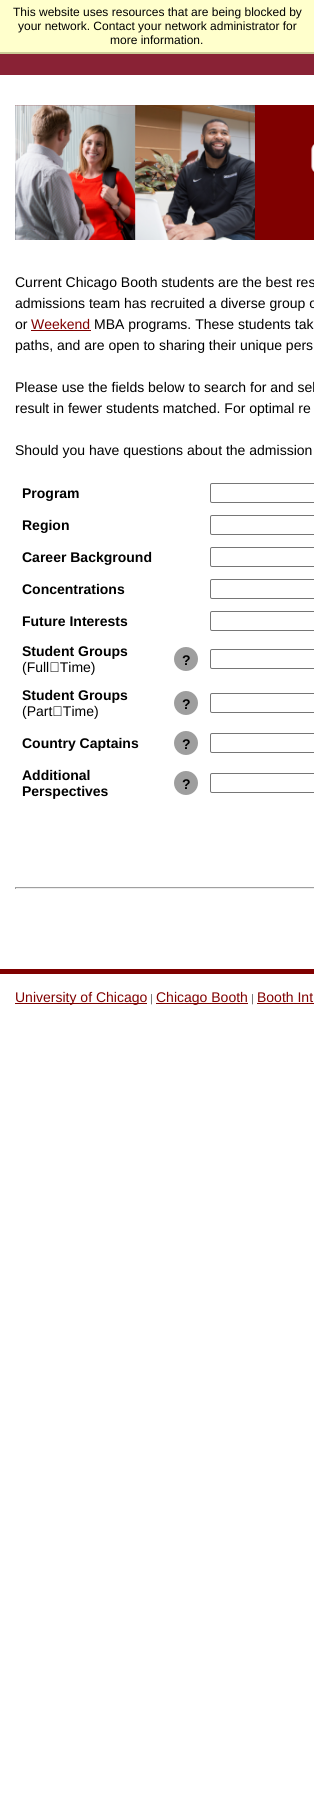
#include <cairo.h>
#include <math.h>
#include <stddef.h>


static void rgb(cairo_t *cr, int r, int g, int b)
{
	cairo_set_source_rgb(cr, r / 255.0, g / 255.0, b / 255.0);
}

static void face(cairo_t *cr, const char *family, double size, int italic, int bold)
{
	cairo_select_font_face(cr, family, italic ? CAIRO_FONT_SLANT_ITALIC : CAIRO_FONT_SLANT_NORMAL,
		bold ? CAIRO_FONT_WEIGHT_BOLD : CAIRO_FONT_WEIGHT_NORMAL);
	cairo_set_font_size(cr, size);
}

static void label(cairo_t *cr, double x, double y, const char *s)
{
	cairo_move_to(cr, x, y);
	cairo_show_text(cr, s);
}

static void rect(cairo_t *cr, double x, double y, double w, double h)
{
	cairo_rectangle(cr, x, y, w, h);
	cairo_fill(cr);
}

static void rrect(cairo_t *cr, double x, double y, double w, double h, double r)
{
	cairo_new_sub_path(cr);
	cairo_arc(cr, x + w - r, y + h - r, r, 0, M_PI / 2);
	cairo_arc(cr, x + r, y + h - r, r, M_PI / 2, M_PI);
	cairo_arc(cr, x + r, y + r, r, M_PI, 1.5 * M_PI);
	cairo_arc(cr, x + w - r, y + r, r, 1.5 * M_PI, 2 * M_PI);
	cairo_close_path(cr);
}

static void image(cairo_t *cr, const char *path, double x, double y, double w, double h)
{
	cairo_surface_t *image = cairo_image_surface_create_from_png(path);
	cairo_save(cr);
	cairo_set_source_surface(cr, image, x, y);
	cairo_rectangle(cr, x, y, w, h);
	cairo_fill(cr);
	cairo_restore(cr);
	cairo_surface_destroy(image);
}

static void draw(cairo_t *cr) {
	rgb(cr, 255, 255, 255);
	cairo_paint(cr);
	rgb(cr, 255, 255, 204);
	rect(cr, 0, 0, 314, 52);
	rgb(cr, 204, 204, 153);
	rect(cr, 0, 52, 314, 2);
	face(cr, "Liberation Sans", 12, 0, 0);
	rgb(cr, 0, 0, 0);
	label(cr, 13, 16, "This website uses resources that are being blocked by");
	label(cr, 18, 30, "your network. Contact your network administrator for");
	label(cr, 110, 44, "more information.");
	rgb(cr, 137, 34, 53);
	rect(cr, 0, 54, 314, 21);
	image(cr, "image0.png", 15, 105, 299, 135);
	face(cr, "Liberation Sans", 14, 0, 0);
	rgb(cr, 0, 0, 0);
	label(cr, 15, 287, "Current Chicago Booth students are the best res");
	label(cr, 15, 308, "admissions team has recruited a diverse group o");
	label(cr, 15, 329, "or");
	rgb(cr, 128, 0, 0);
	label(cr, 31, 329, "Weekend");
	rect(cr, 31, 330, 60, 1);
	rgb(cr, 0, 0, 0);
	label(cr, 94, 329, "MBA programs. These students tak");
	label(cr, 15, 350, "paths, and are open to sharing their unique pers");
	label(cr, 15, 392, "Please use the fields below to search for and sel");
	label(cr, 15, 413, "result in fewer students matched. For optimal re");
	label(cr, 15, 455, "Should you have questions about the admission");
	face(cr, "Liberation Sans", 14, 0, 1);
	label(cr, 22, 498, "Program");
	rrect(cr, 210.5, 483.5, 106, 19, 1.5);
	rgb(cr, 118, 118, 118);
	cairo_set_line_width(cr, 1);
	cairo_stroke(cr);
	rgb(cr, 0, 0, 0);
	label(cr, 22, 530, "Region");
	rrect(cr, 210.5, 515.5, 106, 19, 1.5);
	rgb(cr, 118, 118, 118);
	cairo_stroke(cr);
	rgb(cr, 0, 0, 0);
	label(cr, 22, 562, "Career Background");
	rrect(cr, 210.5, 547.5, 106, 19, 1.5);
	rgb(cr, 118, 118, 118);
	cairo_stroke(cr);
	rgb(cr, 0, 0, 0);
	label(cr, 22, 594, "Concentrations");
	rrect(cr, 210.5, 579.5, 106, 19, 1.5);
	rgb(cr, 118, 118, 118);
	cairo_stroke(cr);
	rgb(cr, 0, 0, 0);
	label(cr, 22, 626, "Future Interests");
	rrect(cr, 210.5, 611.5, 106, 19, 1.5);
	rgb(cr, 118, 118, 118);
	cairo_stroke(cr);
	rgb(cr, 0, 0, 0);
	label(cr, 22, 656, "Student Groups");
	face(cr, "Liberation Sans", 14, 0, 0);
	label(cr, 22, 672, "(Full‑Time)");
	rgb(cr, 158, 158, 158);
	cairo_new_path(cr);
	cairo_arc(cr, 186, 659, 12, 0, 2 * M_PI);
	cairo_fill(cr);
	face(cr, "Liberation Sans", 14, 0, 1);
	rgb(cr, 0, 0, 0);
	label(cr, 182, 665, "?");
	rrect(cr, 210.5, 649.5, 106, 19, 1.5);
	rgb(cr, 118, 118, 118);
	cairo_stroke(cr);
	rgb(cr, 0, 0, 0);
	label(cr, 22, 700, "Student Groups");
	face(cr, "Liberation Sans", 14, 0, 0);
	label(cr, 22, 716, "(Part‑Time)");
	rgb(cr, 158, 158, 158);
	cairo_new_path(cr);
	cairo_arc(cr, 186, 703, 12, 0, 2 * M_PI);
	cairo_fill(cr);
	face(cr, "Liberation Sans", 14, 0, 1);
	rgb(cr, 0, 0, 0);
	label(cr, 182, 709, "?");
	rrect(cr, 210.5, 693.5, 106, 19, 1.5);
	rgb(cr, 118, 118, 118);
	cairo_stroke(cr);
	rgb(cr, 0, 0, 0);
	label(cr, 22, 748, "Country Captains");
	rgb(cr, 158, 158, 158);
	cairo_new_path(cr);
	cairo_arc(cr, 186, 743, 12, 0, 2 * M_PI);
	cairo_fill(cr);
	rgb(cr, 0, 0, 0);
	label(cr, 182, 749, "?");
	rrect(cr, 210.5, 733.5, 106, 19, 1.5);
	rgb(cr, 118, 118, 118);
	cairo_stroke(cr);
	rgb(cr, 0, 0, 0);
	label(cr, 22, 780, "Additional");
	label(cr, 22, 796, "Perspectives");
	rgb(cr, 158, 158, 158);
	cairo_new_path(cr);
	cairo_arc(cr, 186, 783, 12, 0, 2 * M_PI);
	cairo_fill(cr);
	rgb(cr, 0, 0, 0);
	label(cr, 182, 789, "?");
	rrect(cr, 210.5, 773.5, 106, 19, 1.5);
	rgb(cr, 118, 118, 118);
	cairo_stroke(cr);
	rgb(cr, 159, 159, 159);
	rect(cr, 15, 887, 299, 1);
	rgb(cr, 238, 238, 238);
	rect(cr, 15, 888, 299, 1);
	rgb(cr, 159, 159, 159);
	rect(cr, 15, 887, 1, 2);
	rgb(cr, 128, 0, 0);
	rect(cr, 0, 969, 314, 5);
	rect(cr, 15, 1003, 132, 1);
	face(cr, "Liberation Sans", 14, 0, 0);
	label(cr, 15, 1002, "University of Chicago");
	face(cr, "Liberation Sans", 11, 0, 0);
	rgb(cr, 102, 102, 102);
	label(cr, 150, 1002, "|");
	rgb(cr, 128, 0, 0);
	rect(cr, 156, 1003, 92, 1);
	face(cr, "Liberation Sans", 14, 0, 0);
	label(cr, 156, 1002, "Chicago Booth");
	face(cr, "Liberation Sans", 11, 0, 0);
	rgb(cr, 102, 102, 102);
	label(cr, 251, 1002, "|");
	face(cr, "Liberation Sans", 14, 0, 0);
	rgb(cr, 128, 0, 0);
	label(cr, 257, 1002, "Booth Int");
	rect(cr, 257, 1003, 57, 1);
}

int main(void) {
	cairo_surface_t *surface = cairo_image_surface_create(CAIRO_FORMAT_RGB24, 314, 1807);
	cairo_t *cr = cairo_create(surface);
	cairo_font_options_t *options = cairo_font_options_create();
	cairo_font_options_set_hint_metrics(options, CAIRO_HINT_METRICS_OFF);
	cairo_font_options_set_hint_style(options, CAIRO_HINT_STYLE_NONE);
	cairo_set_font_options(cr, options);
	cairo_set_miter_limit(cr, 4);
	draw(cr);
	cairo_surface_write_to_png(surface, "render.png");
	cairo_font_options_destroy(options);
	cairo_destroy(cr);
	cairo_surface_destroy(surface);
	return 0;
}
